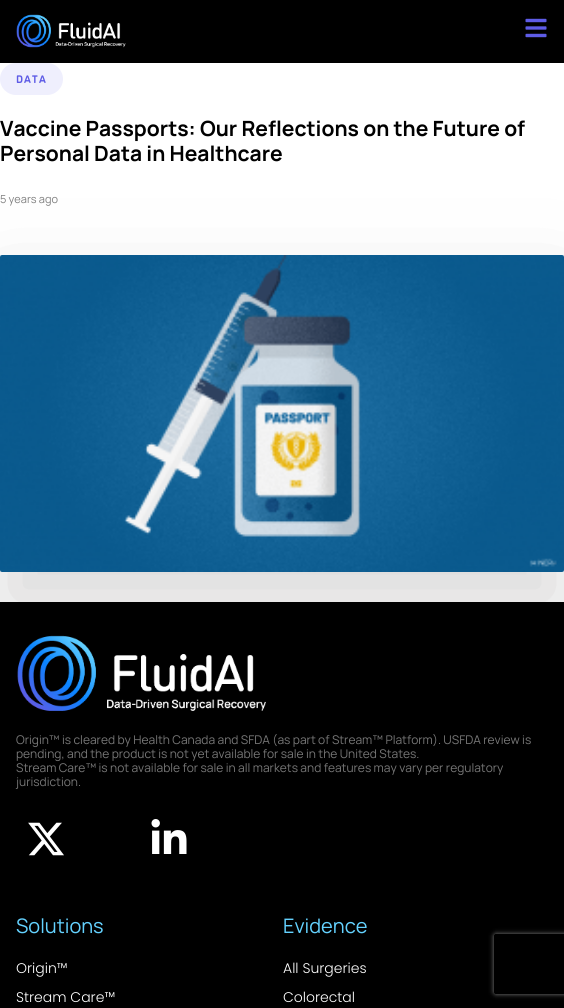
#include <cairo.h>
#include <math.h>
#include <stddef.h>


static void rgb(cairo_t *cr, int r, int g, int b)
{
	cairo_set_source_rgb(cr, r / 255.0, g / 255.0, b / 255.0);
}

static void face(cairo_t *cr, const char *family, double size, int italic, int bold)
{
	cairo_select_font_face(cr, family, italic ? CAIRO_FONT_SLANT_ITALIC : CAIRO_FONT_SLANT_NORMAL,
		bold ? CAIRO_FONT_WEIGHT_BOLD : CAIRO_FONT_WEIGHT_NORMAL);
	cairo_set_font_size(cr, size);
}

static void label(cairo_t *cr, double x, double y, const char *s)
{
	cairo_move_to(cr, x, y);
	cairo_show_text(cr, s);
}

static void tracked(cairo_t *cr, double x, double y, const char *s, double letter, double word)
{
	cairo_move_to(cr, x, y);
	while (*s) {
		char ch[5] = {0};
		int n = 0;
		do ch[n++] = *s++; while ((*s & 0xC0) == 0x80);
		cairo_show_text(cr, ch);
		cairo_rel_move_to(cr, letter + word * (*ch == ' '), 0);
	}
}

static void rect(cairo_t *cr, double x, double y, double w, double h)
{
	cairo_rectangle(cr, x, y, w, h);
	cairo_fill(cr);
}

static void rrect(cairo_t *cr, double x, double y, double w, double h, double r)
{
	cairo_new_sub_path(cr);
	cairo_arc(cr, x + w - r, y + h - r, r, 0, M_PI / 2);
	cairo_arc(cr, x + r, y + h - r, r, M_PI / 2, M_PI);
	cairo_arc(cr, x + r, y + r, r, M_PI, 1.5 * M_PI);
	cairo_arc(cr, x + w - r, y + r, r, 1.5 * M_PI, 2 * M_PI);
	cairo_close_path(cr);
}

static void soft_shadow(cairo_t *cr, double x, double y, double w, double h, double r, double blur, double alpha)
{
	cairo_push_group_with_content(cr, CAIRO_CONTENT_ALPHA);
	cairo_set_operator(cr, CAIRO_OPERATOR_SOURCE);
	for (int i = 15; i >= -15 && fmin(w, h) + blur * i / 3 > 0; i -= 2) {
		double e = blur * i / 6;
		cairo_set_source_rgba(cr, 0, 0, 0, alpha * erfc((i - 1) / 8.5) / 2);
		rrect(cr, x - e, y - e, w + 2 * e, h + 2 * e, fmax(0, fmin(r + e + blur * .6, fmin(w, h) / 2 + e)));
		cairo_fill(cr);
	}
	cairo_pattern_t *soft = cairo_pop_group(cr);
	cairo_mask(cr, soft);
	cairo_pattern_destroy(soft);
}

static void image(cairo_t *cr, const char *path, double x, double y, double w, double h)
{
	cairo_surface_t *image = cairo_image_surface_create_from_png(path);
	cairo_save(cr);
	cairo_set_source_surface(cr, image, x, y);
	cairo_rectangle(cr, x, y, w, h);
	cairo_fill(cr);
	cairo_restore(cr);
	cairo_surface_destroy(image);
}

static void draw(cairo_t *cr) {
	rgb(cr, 255, 255, 255);
	cairo_paint(cr);
	rgb(cr, 0, 0, 0);
	rect(cr, 0, 0, 564, 63);
	image(cr, "image0.png", 16, 14, 110, 34);
	image(cr, "image1.png", 525, 18, 22, 20);
	rgb(cr, 239, 239, 253);
	rrect(cr, 0, 63, 63, 32, 16);
	cairo_fill(cr);
	face(cr, "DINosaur", 11, 0, 1);
	rgb(cr, 94, 92, 230);
	tracked(cr, 16, 83, "DATA", 1, 0);
	face(cr, "Manrope", 21, 0, 1);
	rgb(cr, 0, 0, 0);
	label(cr, 0, 136, "Vaccine Passports: Our Reflections on the Future of");
	label(cr, 0, 161, "Personal Data in Healthcare");
	face(cr, "Manrope", 11, 0, 0);
	rgb(cr, 128, 128, 128);
	label(cr, 0, 203, "5 years ago");
	rgb(cr, 70, 67, 67);
	soft_shadow(cr, 0, 295, 564, 317, 2, 45, 0.2);
	image(cr, "image2.png", 0, 255, 564, 317);
	rgb(cr, 0, 0, 0);
	rect(cr, 0, 602, 564, 406);
	image(cr, "image3.png", 17, 635, 249, 76);
	face(cr, "Manrope", 12, 0, 0);
	rgb(cr, 119, 119, 119);
	label(cr, 16, 744, "Origin™ is cleared by Health Canada and SFDA (as part of Stream™ Platform). USFDA review is");
	label(cr, 16, 758, "pending, and the product is not yet available for sale in the United States.");
	label(cr, 16, 772, "Stream Care™ is not available for sale in all markets and features may vary per regulatory");
	label(cr, 16, 786, "jurisdiction.");
	image(cr, "image4.png", 28, 822, 36, 34);
	image(cr, "image5.png", 151, 819, 36, 35);
	face(cr, "Manrope", 20, 0, 0);
	rgb(cr, 100, 210, 255);
	label(cr, 16, 933, "Solutions");
	face(cr, "Poppins Light", 14, 0, 0);
	rgb(cr, 255, 255, 255);
	label(cr, 16, 973, "Origin™");
	label(cr, 16, 1002, "Stream Care™");
	face(cr, "Manrope", 20, 0, 0);
	rgb(cr, 100, 210, 255);
	label(cr, 283, 933, "Evidence");
	face(cr, "Poppins Light", 14, 0, 0);
	rgb(cr, 255, 255, 255);
	label(cr, 283, 973, "All Surgeries");
	label(cr, 283, 1002, "Colorectal");
	cairo_save(cr);
	cairo_set_fill_rule(cr, CAIRO_FILL_RULE_EVEN_ODD);
	cairo_new_path(cr);
	cairo_move_to(cr, 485, 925);
	cairo_line_to(cr, 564, 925);
	cairo_line_to(cr, 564, 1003);
	cairo_line_to(cr, 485, 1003);
	cairo_close_path(cr);
	cairo_move_to(cr, 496, 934);
	cairo_line_to(cr, 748, 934);
	cairo_curve_to(cr, 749, 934, 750, 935, 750, 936);
	cairo_line_to(cr, 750, 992);
	cairo_curve_to(cr, 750, 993, 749, 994, 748, 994);
	cairo_line_to(cr, 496, 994);
	cairo_curve_to(cr, 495, 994, 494, 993, 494, 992);
	cairo_line_to(cr, 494, 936);
	cairo_curve_to(cr, 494, 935, 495, 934, 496, 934);
	cairo_close_path(cr);
	cairo_clip(cr);
	rgb(cr, 128, 128, 128);
	soft_shadow(cr, 494, 934, 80, 60, 2, 2.5, 1);
	cairo_restore(cr);
}

int main(void) {
	cairo_surface_t *surface = cairo_image_surface_create(CAIRO_FORMAT_RGB24, 564, 1008);
	cairo_t *cr = cairo_create(surface);
	cairo_font_options_t *options = cairo_font_options_create();
	cairo_font_options_set_hint_metrics(options, CAIRO_HINT_METRICS_OFF);
	cairo_font_options_set_hint_style(options, CAIRO_HINT_STYLE_NONE);
	cairo_set_font_options(cr, options);
	cairo_set_miter_limit(cr, 4);
	draw(cr);
	cairo_surface_write_to_png(surface, "render.png");
	cairo_font_options_destroy(options);
	cairo_destroy(cr);
	cairo_surface_destroy(surface);
	return 0;
}
